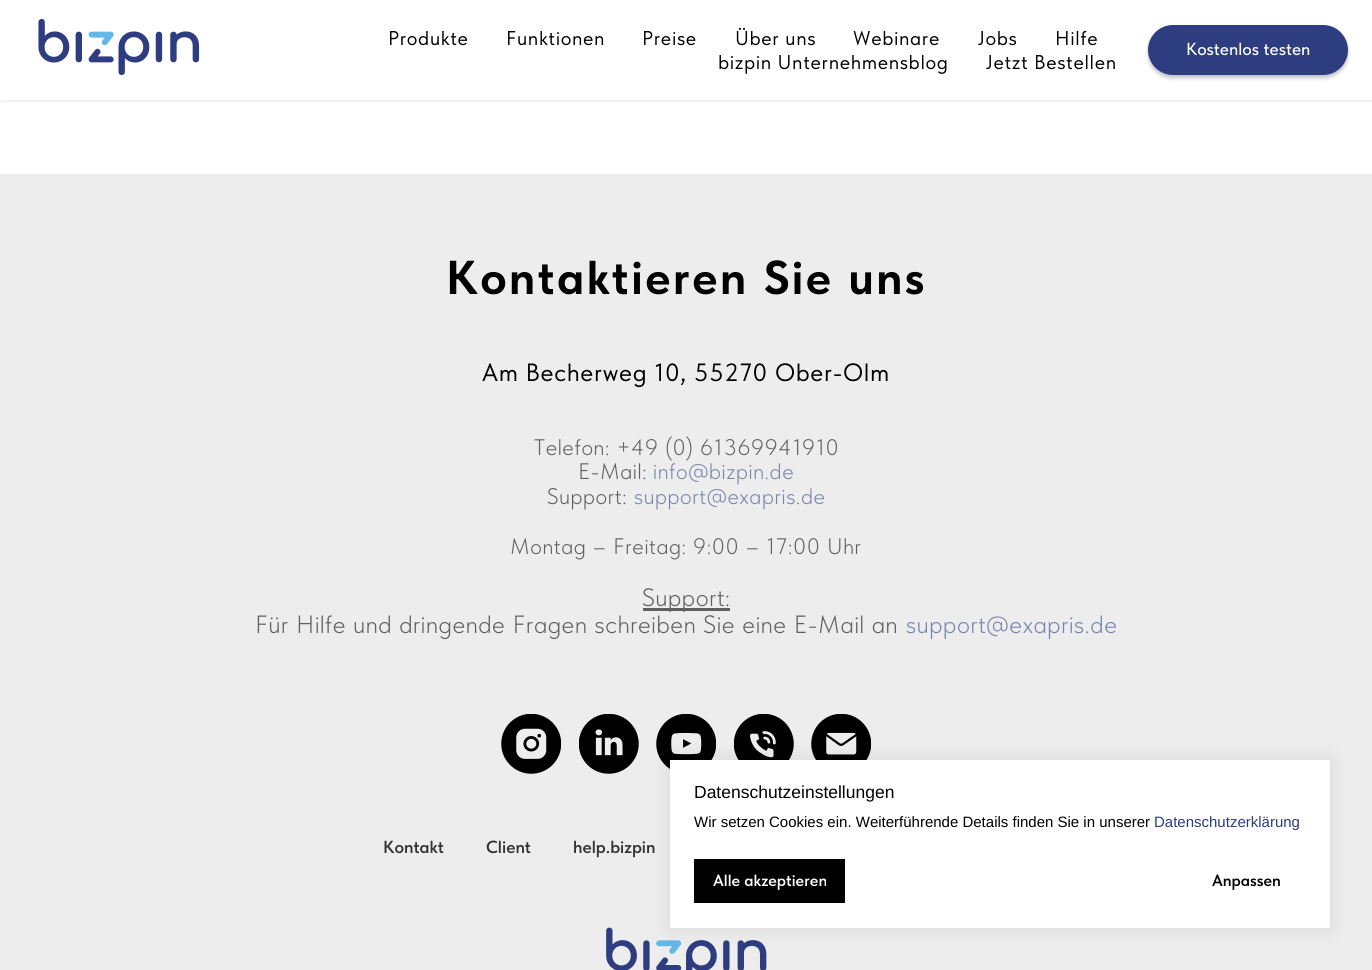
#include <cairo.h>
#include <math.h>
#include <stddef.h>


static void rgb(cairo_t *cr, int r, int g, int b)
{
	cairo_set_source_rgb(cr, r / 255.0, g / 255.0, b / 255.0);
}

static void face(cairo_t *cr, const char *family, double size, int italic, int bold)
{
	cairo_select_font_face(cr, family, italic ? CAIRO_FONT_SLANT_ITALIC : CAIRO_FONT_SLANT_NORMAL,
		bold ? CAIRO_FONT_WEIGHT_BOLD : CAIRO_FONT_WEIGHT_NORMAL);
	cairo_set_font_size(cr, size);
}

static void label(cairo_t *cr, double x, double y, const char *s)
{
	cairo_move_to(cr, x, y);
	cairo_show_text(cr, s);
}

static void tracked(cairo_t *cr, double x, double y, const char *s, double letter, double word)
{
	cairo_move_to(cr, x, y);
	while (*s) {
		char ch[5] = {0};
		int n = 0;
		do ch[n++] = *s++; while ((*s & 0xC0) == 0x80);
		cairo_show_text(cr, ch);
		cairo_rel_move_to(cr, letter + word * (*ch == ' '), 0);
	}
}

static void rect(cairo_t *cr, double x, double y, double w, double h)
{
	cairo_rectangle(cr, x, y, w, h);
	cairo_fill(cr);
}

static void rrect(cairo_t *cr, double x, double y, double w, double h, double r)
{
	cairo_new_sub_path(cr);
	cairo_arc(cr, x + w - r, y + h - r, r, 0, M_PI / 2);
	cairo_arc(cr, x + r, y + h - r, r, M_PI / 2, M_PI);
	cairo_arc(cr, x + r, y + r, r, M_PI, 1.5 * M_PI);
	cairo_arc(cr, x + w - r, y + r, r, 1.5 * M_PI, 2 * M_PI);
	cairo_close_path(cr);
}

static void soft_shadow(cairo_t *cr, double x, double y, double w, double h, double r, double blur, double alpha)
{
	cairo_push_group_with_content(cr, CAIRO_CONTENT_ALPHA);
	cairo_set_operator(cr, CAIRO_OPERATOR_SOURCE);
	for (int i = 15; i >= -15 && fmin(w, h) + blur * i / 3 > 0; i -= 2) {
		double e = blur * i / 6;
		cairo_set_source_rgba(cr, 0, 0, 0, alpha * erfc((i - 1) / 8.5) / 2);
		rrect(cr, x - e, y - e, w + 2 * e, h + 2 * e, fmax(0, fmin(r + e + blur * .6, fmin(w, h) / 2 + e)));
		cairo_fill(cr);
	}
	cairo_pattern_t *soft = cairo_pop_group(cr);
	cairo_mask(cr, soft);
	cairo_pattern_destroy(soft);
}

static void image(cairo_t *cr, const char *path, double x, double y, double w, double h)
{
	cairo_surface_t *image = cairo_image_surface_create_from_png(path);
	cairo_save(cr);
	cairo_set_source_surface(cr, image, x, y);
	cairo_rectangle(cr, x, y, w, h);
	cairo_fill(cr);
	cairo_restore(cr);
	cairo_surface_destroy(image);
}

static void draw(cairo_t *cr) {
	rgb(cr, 255, 255, 255);
	cairo_paint(cr);
	rgb(cr, 0, 0, 0);
	soft_shadow(cr, 0, 1, 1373, 100, 0, 2, 0.1);
	rgb(cr, 255, 255, 255);
	rect(cr, 0, 0, 1372, 100);
	image(cr, "image0.png", 38, 18, 162, 58);
	face(cr, "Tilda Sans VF", 20, 0, 0);
	rgb(cr, 0, 0, 0);
	tracked(cr, 388, 45, "Produkte", 0.62, 0);
	tracked(cr, 506, 45, "Funktionen", 0.62, 0);
	tracked(cr, 642, 45, "Preise", 0.62, 0);
	tracked(cr, 735, 45, "Über uns", 0.62, 0);
	tracked(cr, 853, 45, "Webinare", 0.62, 0);
	tracked(cr, 978, 45, "Jobs", 0.62, 0);
	tracked(cr, 1055, 45, "Hilfe", 0.62, 0);
	tracked(cr, 718, 69, "bizpin Unternehmensblog", 0.62, 0);
	tracked(cr, 986, 69, "Jetzt Bestellen", 0.62, 0);
	rgb(cr, 0, 11, 48);
	soft_shadow(cr, 1148, 28, 200, 50, 25, 2, 0.25);
	rgb(cr, 46, 61, 128);
	rrect(cr, 1148, 25, 200, 50, 25);
	cairo_fill(cr);
	face(cr, "Tilda Sans VF Medium", 17.5, 0, 0);
	rgb(cr, 255, 255, 255);
	label(cr, 1186, 55, "Kostenlos testen");
	rgb(cr, 237, 237, 237);
	rect(cr, 0, 174, 1372, 796);
	face(cr, "Tilda Sans VF", 47.5, 0, 1);
	rgb(cr, 0, 0, 0);
	tracked(cr, 446, 294, "Kontaktieren Sie uns", 2.5, 0);
	face(cr, "Tilda Sans VF", 25, 0, 0);
	tracked(cr, 482, 381, "Am Becherweg 10, 55270 Ober-Olm", 0.62, 0);
	face(cr, "Tilda Sans VF Light", 22.5, 0, 0);
	rgb(cr, 95, 95, 95);
	tracked(cr, 534, 455, "Telefon: +49 (0) 61369941910", 0.62, 0);
	tracked(cr, 578, 479, "E-Mail:", 0.62, 0);
	rgb(cr, 122, 131, 172);
	tracked(cr, 653, 479, "info@bizpin.de", 0.62, 0);
	rgb(cr, 95, 95, 95);
	tracked(cr, 547, 504, "Support:", 0.62, 0);
	rgb(cr, 122, 131, 172);
	tracked(cr, 634, 504, "support@exapris.de", 0.62, 0);
	rgb(cr, 95, 95, 95);
	tracked(cr, 510, 554, "Montag – Freitag: 9:00 – 17:00 Uhr", 0.62, 0);
	rect(cr, 643, 608, 87, 3);
	face(cr, "Tilda Sans VF Light", 25, 0, 0);
	tracked(cr, 642, 606, "Support:", 0.62, 0);
	tracked(cr, 255, 633, "Für Hilfe und dringende Fragen schreiben Sie eine E-Mail an", 0.62, 0);
	rgb(cr, 122, 131, 172);
	tracked(cr, 906, 633, "support@exapris.de", 0.62, 0);
	image(cr, "image1.png", 501, 714, 60, 60);
	image(cr, "image2.png", 579, 714, 60, 60);
	image(cr, "image3.png", 656, 714, 60, 55);
	image(cr, "image4.png", 734, 714, 60, 46);
	image(cr, "image5.png", 811, 714, 60, 46);
	face(cr, "Tilda Sans VF SemiBold", 17.5, 0, 0);
	rgb(cr, 51, 51, 51);
	label(cr, 383, 853, "Kontakt");
	label(cr, 486, 853, "Client");
	label(cr, 573, 853, "help.bizpin");
	image(cr, "image6.png", 606, 927, 161, 43);
	rgb(cr, 0, 0, 0);
	soft_shadow(cr, 670, 760, 660, 168, 0, 9.5, 0.1);
	rgb(cr, 255, 255, 255);
	rect(cr, 670, 760, 660, 168);
	face(cr, "Liberation Sans", 17.5, 0, 0);
	rgb(cr, 0, 0, 0);
	label(cr, 694, 798, "Datenschutzeinstellungen");
	face(cr, "Liberation Sans", 15, 0, 0);
	label(cr, 694, 827, "Wir setzen Cookies ein. Weiterführende Details finden Sie in unserer");
	rgb(cr, 46, 61, 128);
	label(cr, 1154, 827, "Datenschutzerklärung");
	rgb(cr, 0, 0, 0);
	rect(cr, 694, 859, 151, 44);
	face(cr, "Tilda Sans VF SemiBold", 16.25, 0, 0);
	rgb(cr, 255, 255, 255);
	label(cr, 713, 886, "Alle akzeptieren");
	rgb(cr, 0, 0, 0);
	label(cr, 1212, 886, "Anpassen");
}

int main(void) {
	cairo_surface_t *surface = cairo_image_surface_create(CAIRO_FORMAT_RGB24, 1372, 970);
	cairo_t *cr = cairo_create(surface);
	cairo_font_options_t *options = cairo_font_options_create();
	cairo_font_options_set_hint_metrics(options, CAIRO_HINT_METRICS_OFF);
	cairo_font_options_set_hint_style(options, CAIRO_HINT_STYLE_NONE);
	cairo_set_font_options(cr, options);
	cairo_set_miter_limit(cr, 4);
	draw(cr);
	cairo_surface_write_to_png(surface, "render.png");
	cairo_font_options_destroy(options);
	cairo_destroy(cr);
	cairo_surface_destroy(surface);
	return 0;
}
